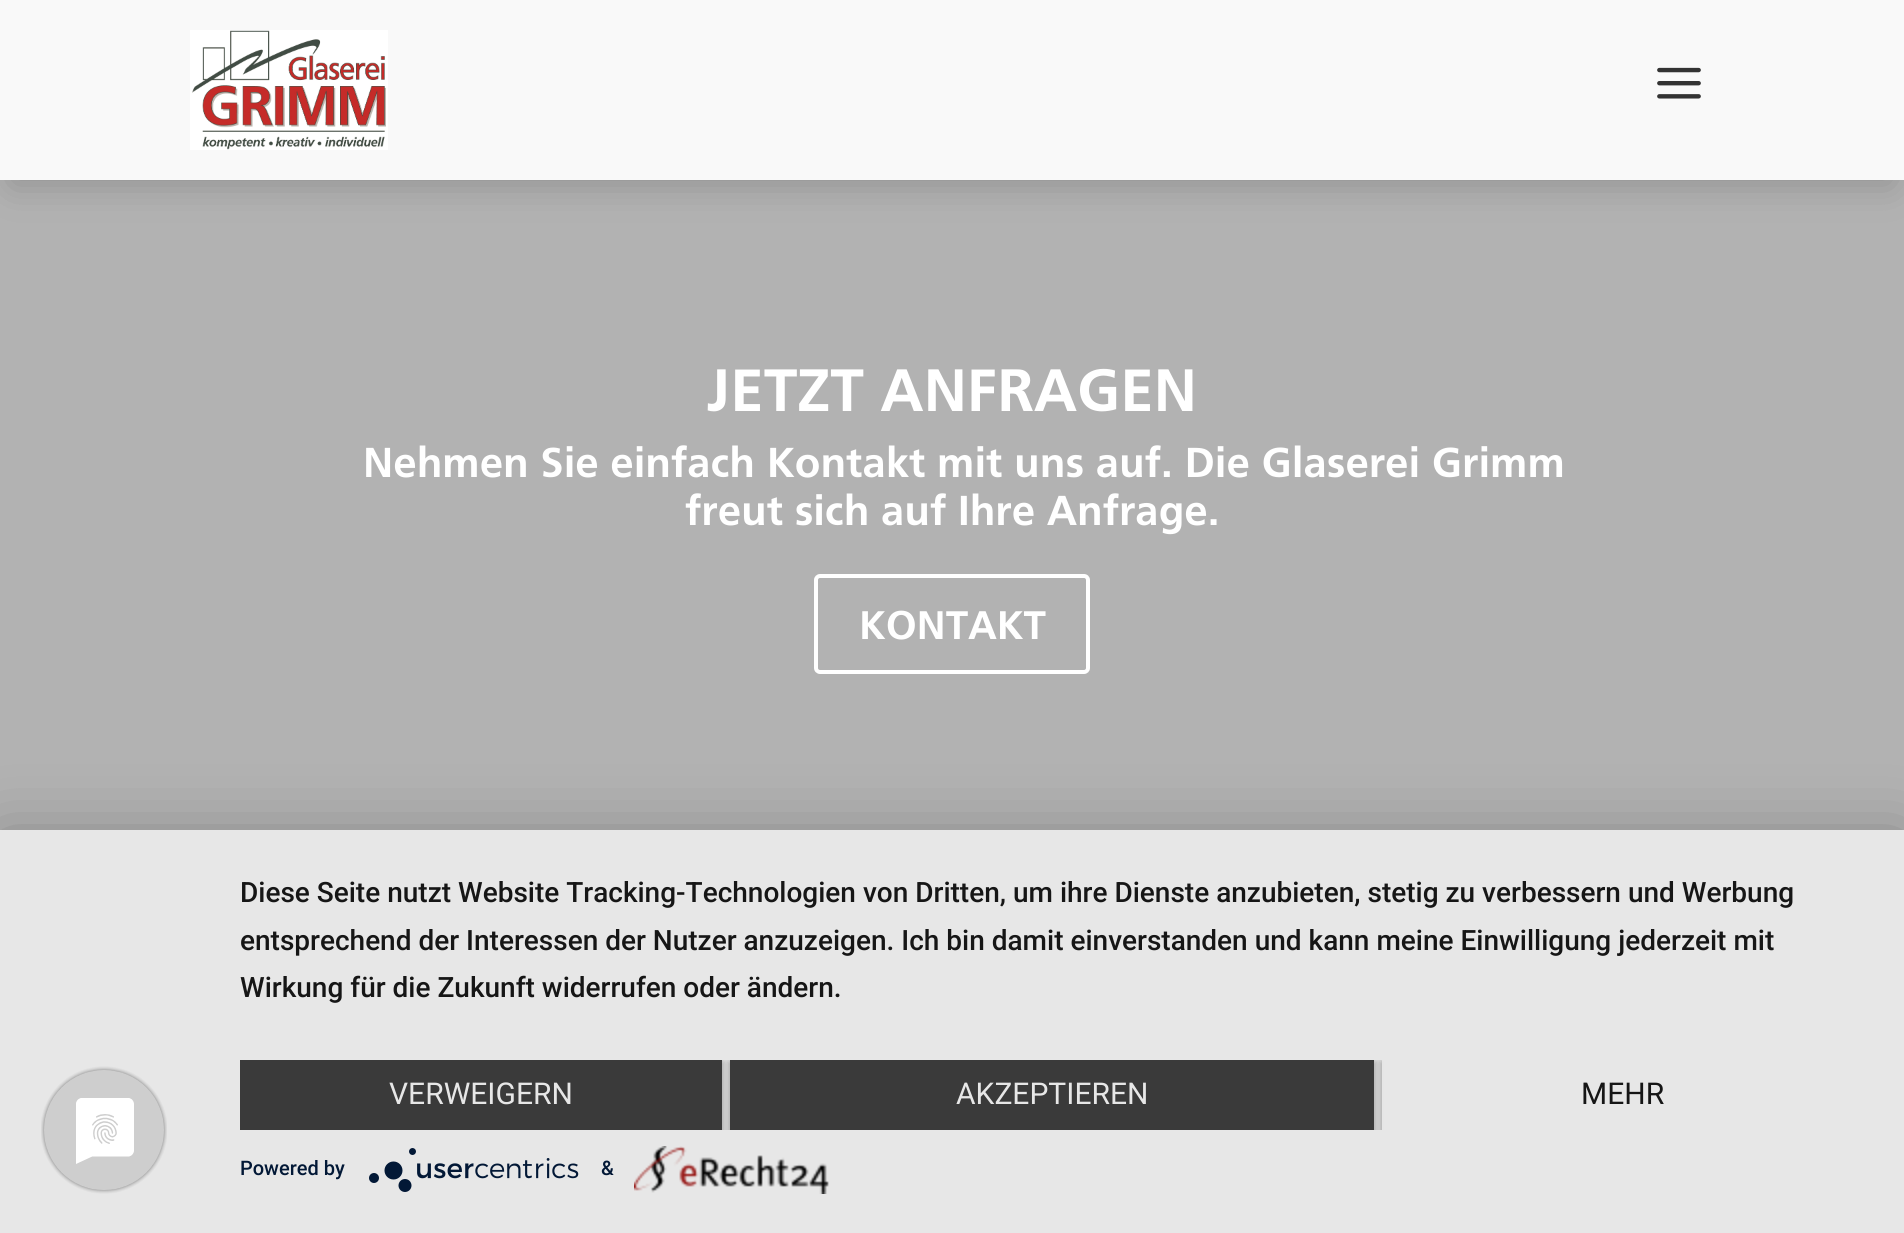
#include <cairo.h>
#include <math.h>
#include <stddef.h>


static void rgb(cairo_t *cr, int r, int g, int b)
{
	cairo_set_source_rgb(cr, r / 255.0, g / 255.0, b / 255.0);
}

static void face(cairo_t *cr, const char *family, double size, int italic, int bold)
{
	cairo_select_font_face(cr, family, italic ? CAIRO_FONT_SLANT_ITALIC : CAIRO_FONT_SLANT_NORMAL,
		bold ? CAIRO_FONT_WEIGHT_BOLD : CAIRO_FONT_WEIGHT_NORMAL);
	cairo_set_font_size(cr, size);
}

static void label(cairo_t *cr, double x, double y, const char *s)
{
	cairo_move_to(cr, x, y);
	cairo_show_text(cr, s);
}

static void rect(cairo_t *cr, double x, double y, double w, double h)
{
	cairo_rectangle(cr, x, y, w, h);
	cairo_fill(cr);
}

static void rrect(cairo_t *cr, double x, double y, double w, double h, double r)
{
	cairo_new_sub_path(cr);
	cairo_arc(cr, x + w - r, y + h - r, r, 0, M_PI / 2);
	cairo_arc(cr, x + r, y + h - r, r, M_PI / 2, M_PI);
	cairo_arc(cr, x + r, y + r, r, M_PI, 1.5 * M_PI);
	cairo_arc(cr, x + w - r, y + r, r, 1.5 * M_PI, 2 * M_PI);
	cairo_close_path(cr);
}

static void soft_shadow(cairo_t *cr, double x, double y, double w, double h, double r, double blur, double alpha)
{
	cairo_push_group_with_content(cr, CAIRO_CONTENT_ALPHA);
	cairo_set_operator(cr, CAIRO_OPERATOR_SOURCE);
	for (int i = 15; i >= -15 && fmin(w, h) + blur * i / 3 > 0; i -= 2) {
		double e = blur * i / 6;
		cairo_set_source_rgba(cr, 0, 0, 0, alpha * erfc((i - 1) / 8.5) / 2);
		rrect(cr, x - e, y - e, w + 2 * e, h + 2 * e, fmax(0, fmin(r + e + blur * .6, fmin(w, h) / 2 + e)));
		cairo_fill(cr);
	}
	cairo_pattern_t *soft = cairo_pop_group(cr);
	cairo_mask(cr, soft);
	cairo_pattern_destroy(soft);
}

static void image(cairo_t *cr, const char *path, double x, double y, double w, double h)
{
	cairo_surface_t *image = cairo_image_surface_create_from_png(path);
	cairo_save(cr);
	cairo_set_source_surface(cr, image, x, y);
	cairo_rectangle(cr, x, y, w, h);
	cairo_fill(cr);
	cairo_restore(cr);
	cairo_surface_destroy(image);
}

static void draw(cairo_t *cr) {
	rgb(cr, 178, 178, 178);
	cairo_paint(cr);
	rgb(cr, 0, 0, 0);
	soft_shadow(cr, 12, 28, 1880, 156, 0, 18, 0.2);
	rgb(cr, 249, 249, 249);
	rect(cr, 0, 0, 1904, 180);
	image(cr, "image0.png", 190, 30, 198, 120);
	image(cr, "image1.png", 1657, 67, 44, 32);
	face(cr, "Frutiger", 60, 0, 1);
	rgb(cr, 255, 255, 255);
	label(cr, 707, 411, "JETZT ANFRAGEN");
	face(cr, "Frutiger", 42, 0, 1);
	label(cr, 363, 477, "Nehmen Sie einfach Kontakt mit uns auf. Die Glaserei Grimm");
	label(cr, 685, 525, "freut sich auf Ihre Anfrage.");
	rrect(cr, 816, 576, 272, 96, 4);
	cairo_set_line_width(cr, 4);
	cairo_stroke(cr);
	face(cr, "Frutiger", 40, 0, 1);
	label(cr, 859, 639, "KONTAKT");
	rgb(cr, 0, 0, 0);
	soft_shadow(cr, 0, 842, 1904, 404, 0, 36, 0.3);
	rgb(cr, 231, 231, 231);
	rect(cr, 0, 830, 1904, 403);
	image(cr, "image2.png", 41, 1066, 126, 128);
	face(cr, "Roboto Medium", 28, 0, 0);
	rgb(cr, 22, 22, 22);
	label(cr, 240, 902, "Diese Seite nutzt Website Tracking-Technologien von Dritten, um ihre Dienste anzubieten, stetig zu verbessern und Werbung");
	label(cr, 240, 950, "entsprechend der Interessen der Nutzer anzuzeigen. Ich bin damit einverstanden und kann meine Einwilligung jederzeit mit");
	label(cr, 240, 997, "Wirkung für die Zukunft widerrufen oder ändern.");
	cairo_save(cr);
	cairo_rectangle(cr, 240, 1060, 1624, 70);
	cairo_clip(cr);
	rgb(cr, 0, 0, 0);
	soft_shadow(cr, 240, 1062, 482, 70, 0, 4, 0.4);
	cairo_restore(cr);
	rgb(cr, 58, 58, 58);
	rect(cr, 240, 1060, 482, 70);
	face(cr, "Roboto", 30, 0, 0);
	rgb(cr, 231, 231, 231);
	label(cr, 389, 1104, "VERWEIGERN");
	cairo_save(cr);
	cairo_rectangle(cr, 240, 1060, 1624, 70);
	cairo_clip(cr);
	rgb(cr, 0, 0, 0);
	soft_shadow(cr, 730, 1062, 644, 70, 0, 4, 0.4);
	cairo_restore(cr);
	rgb(cr, 58, 58, 58);
	rect(cr, 730, 1060, 644, 70);
	rgb(cr, 231, 231, 231);
	label(cr, 956, 1104, "AKZEPTIEREN");
	cairo_save(cr);
	cairo_rectangle(cr, 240, 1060, 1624, 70);
	cairo_clip(cr);
	cairo_rectangle(cr, 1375, 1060, 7, 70);
	cairo_clip(cr);
	rgb(cr, 0, 0, 0);
	soft_shadow(cr, 1382, 1062, 482, 70, 0, 4, 0.4);
	cairo_restore(cr);
	rgb(cr, 22, 22, 22);
	label(cr, 1581, 1104, "MEHR");
	face(cr, "Roboto Medium", 20, 0, 0);
	rgb(cr, 2, 24, 54);
	label(cr, 240, 1175, "Powered by");
	image(cr, "image3.png", 369, 1148, 210, 44);
	label(cr, 601, 1175, "&");
	image(cr, "image4.png", 634, 1146, 195, 48);
}

int main(void) {
	cairo_surface_t *surface = cairo_image_surface_create(CAIRO_FORMAT_RGB24, 1904, 1233);
	cairo_t *cr = cairo_create(surface);
	cairo_font_options_t *options = cairo_font_options_create();
	cairo_font_options_set_hint_metrics(options, CAIRO_HINT_METRICS_OFF);
	cairo_font_options_set_hint_style(options, CAIRO_HINT_STYLE_NONE);
	cairo_set_font_options(cr, options);
	cairo_set_miter_limit(cr, 4);
	draw(cr);
	cairo_surface_write_to_png(surface, "render.png");
	cairo_font_options_destroy(options);
	cairo_destroy(cr);
	cairo_surface_destroy(surface);
	return 0;
}
